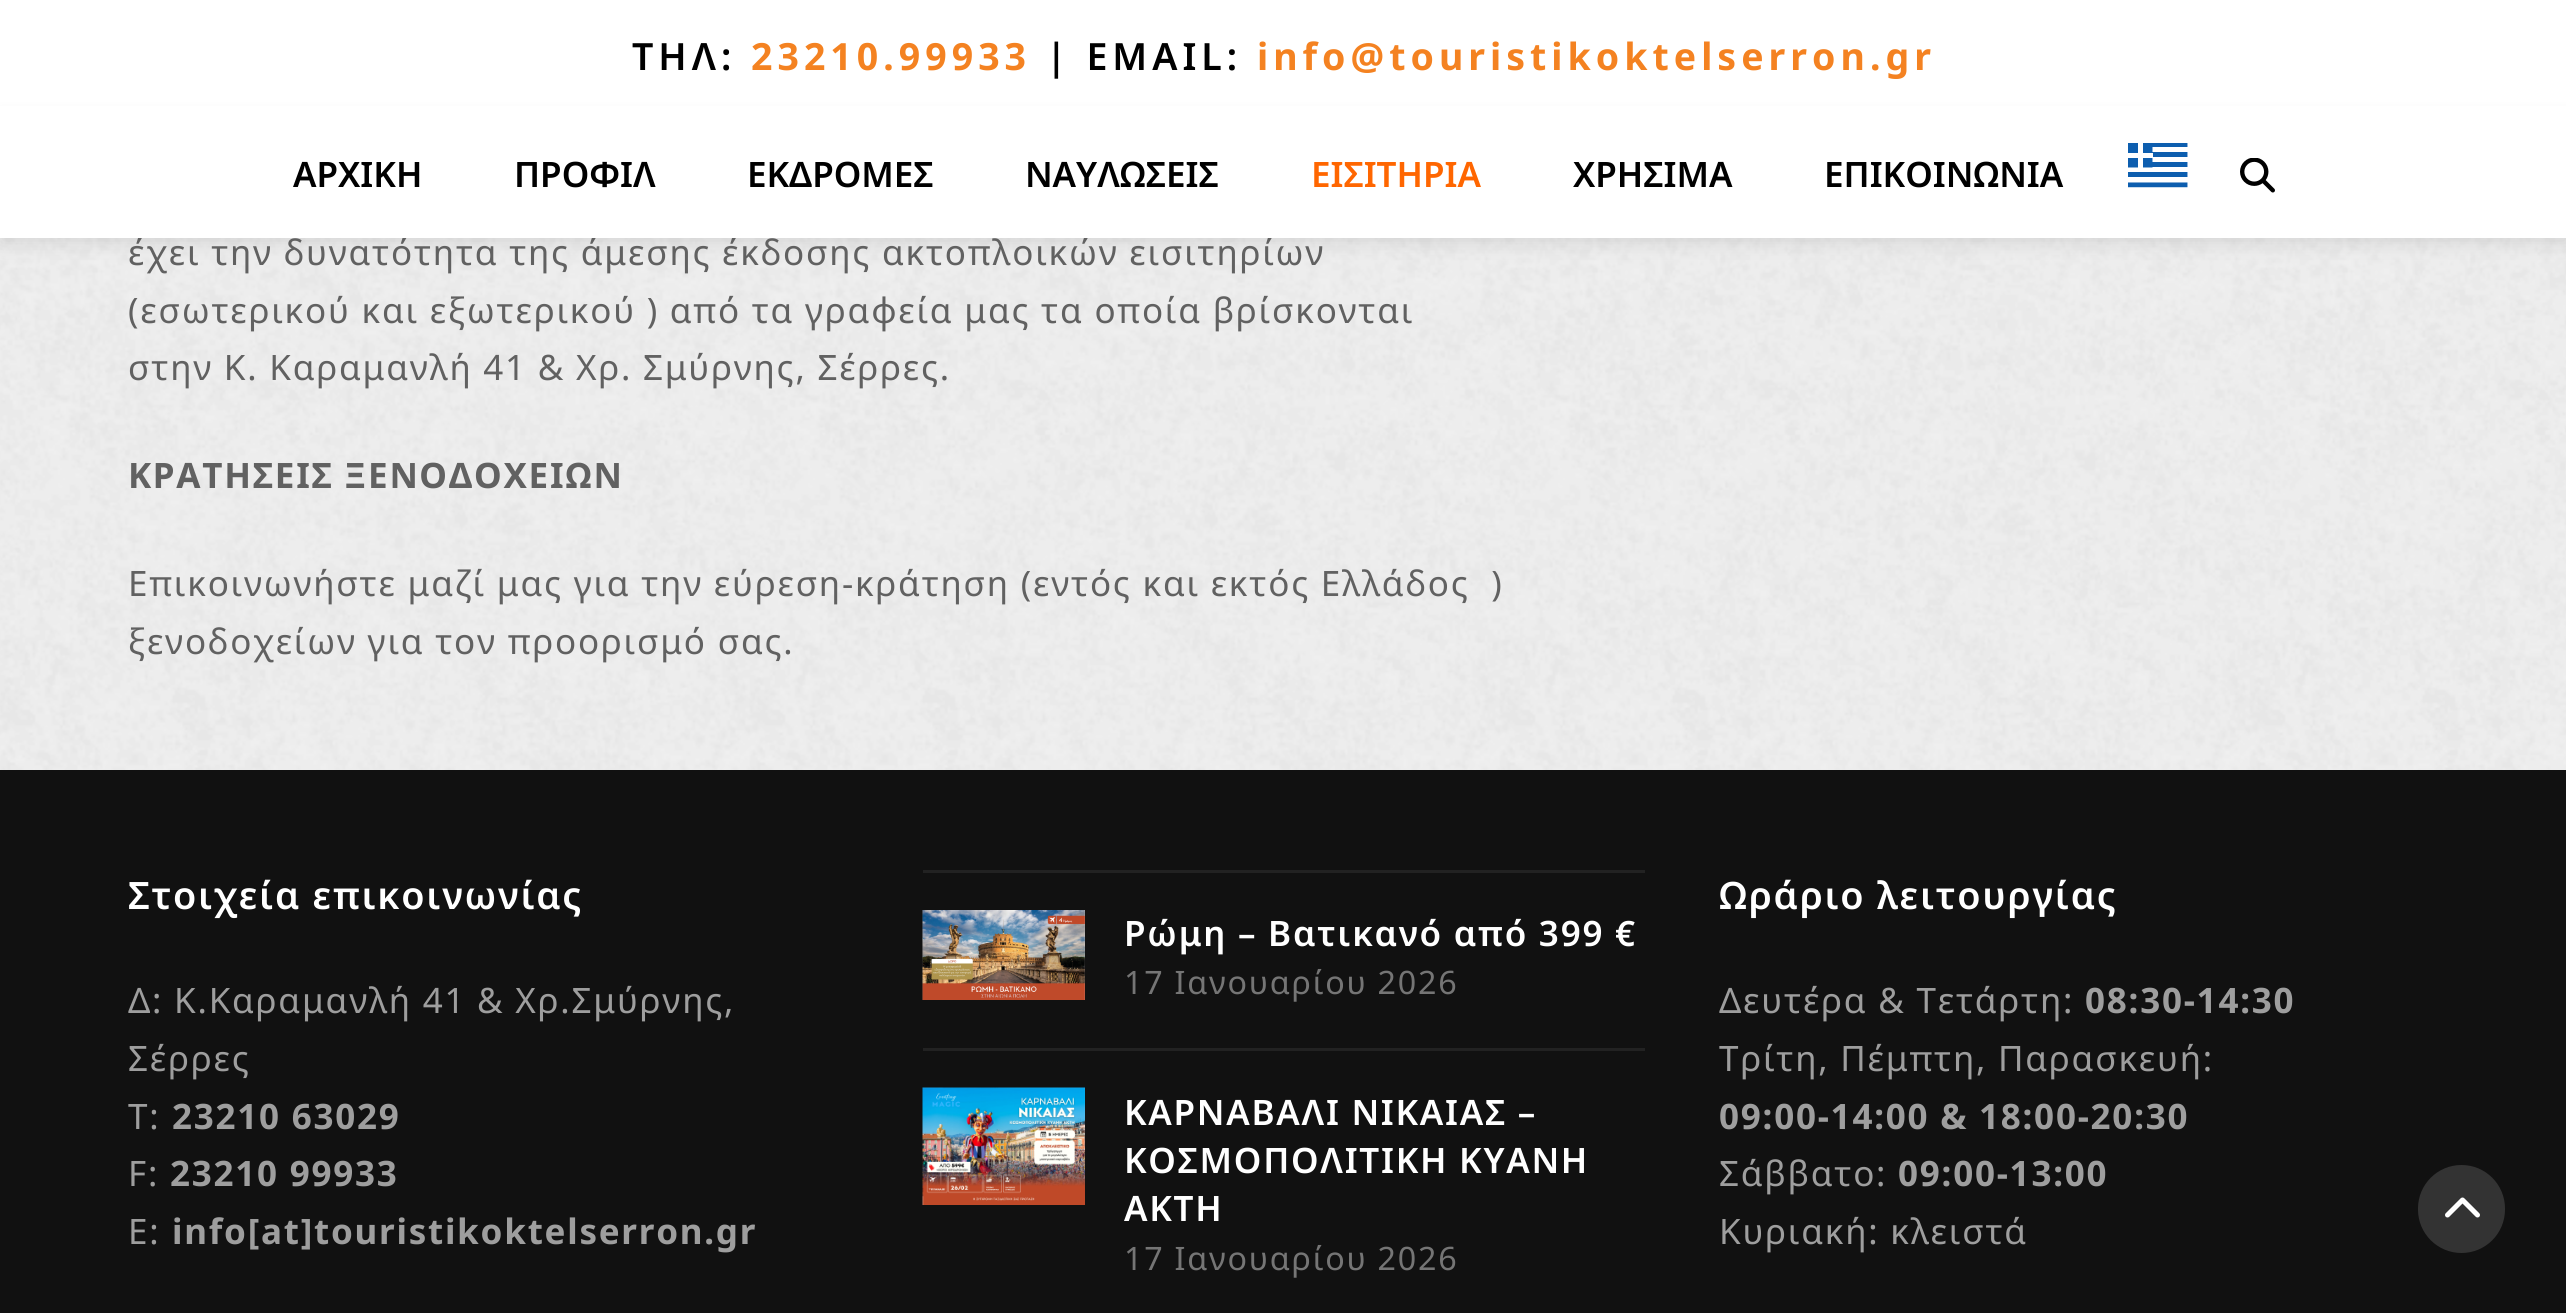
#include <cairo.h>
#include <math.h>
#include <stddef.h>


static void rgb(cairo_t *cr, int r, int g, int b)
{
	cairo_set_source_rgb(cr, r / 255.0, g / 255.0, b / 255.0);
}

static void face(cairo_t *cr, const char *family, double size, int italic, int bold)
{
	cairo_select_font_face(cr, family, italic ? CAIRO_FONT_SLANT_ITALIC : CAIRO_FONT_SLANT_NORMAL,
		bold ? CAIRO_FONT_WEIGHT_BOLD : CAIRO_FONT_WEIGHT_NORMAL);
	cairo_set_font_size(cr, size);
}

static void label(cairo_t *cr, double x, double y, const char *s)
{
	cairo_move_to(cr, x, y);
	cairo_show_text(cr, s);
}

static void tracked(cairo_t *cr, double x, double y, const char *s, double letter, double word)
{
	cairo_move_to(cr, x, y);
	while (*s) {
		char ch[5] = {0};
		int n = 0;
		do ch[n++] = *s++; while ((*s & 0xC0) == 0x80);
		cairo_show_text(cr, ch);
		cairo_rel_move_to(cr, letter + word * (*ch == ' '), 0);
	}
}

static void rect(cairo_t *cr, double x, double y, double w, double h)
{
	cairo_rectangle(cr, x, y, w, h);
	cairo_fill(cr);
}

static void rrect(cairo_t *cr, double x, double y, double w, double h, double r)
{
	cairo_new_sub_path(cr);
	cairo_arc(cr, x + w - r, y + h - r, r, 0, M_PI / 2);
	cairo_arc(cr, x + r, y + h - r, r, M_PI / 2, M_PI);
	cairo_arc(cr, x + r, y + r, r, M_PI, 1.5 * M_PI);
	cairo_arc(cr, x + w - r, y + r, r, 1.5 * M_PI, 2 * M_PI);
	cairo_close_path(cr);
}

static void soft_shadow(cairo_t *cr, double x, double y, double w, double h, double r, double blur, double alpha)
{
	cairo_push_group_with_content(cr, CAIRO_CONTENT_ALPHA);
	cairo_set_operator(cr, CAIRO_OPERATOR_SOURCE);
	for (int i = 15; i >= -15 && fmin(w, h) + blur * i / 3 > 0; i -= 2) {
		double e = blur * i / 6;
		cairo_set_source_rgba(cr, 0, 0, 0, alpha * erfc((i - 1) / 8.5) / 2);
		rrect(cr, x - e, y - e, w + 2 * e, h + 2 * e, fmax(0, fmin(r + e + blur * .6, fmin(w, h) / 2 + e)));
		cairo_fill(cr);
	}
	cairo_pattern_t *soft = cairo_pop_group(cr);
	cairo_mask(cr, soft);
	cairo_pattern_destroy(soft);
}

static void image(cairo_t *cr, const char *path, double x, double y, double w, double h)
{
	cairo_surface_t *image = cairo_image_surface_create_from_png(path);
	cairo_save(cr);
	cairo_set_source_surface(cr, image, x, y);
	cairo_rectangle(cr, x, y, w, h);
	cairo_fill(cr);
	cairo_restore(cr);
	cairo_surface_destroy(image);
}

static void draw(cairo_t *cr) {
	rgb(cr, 255, 255, 255);
	cairo_paint(cr);
	image(cr, "image0.png", 0, 238, 2566, 532);
	face(cr, "Noto Sans SemiBold", 37.5, 0, 0);
	rgb(cr, 0, 0, 0);
	tracked(cr, 632, 70, "ΤΗΛ:", 5, 0);
	face(cr, "Noto Sans", 37.5, 0, 1);
	rgb(cr, 244, 130, 33);
	tracked(cr, 751, 70, "23210.99933", 5, 0);
	face(cr, "Noto Sans SemiBold", 37.5, 0, 0);
	rgb(cr, 0, 0, 0);
	tracked(cr, 1046, 70, "| EMAIL:", 5, 0);
	face(cr, "Noto Sans", 37.5, 0, 1);
	rgb(cr, 244, 130, 33);
	tracked(cr, 1257, 70, "info@touristikoktelserron.gr", 5, 0);
	rgb(cr, 0, 0, 0);
	soft_shadow(cr, 0, 118, 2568, 125, 0, 9, 0.1);
	face(cr, "Noto Sans", 35, 0, 0);
	rgb(cr, 97, 97, 97);
	tracked(cr, 128, 265, "έχει την δυνατότητα της άμεσης έκδοσης ακτοπλοικών εισιτηρίων", 1.75, 0);
	rgb(cr, 255, 255, 255);
	rect(cr, 0, 106, 2566, 132);
	face(cr, "Noto Sans SemiBold", 35, 0, 0);
	rgb(cr, 0, 0, 0);
	label(cr, 293, 187, "ΑΡΧΙΚΗ");
	label(cr, 514, 187, "ΠΡΟΦΙΛ");
	label(cr, 747, 187, "ΕΚΔΡΟΜΕΣ");
	label(cr, 1025, 187, "ΝΑΥΛΩΣΕΙΣ");
	rgb(cr, 255, 102, 0);
	label(cr, 1311, 187, "ΕΙΣΙΤΗΡΙΑ");
	rgb(cr, 0, 0, 0);
	label(cr, 1573, 187, "ΧΡΗΣΙΜΑ");
	label(cr, 1824, 187, "ΕΠΙΚΟΙΝΩΝΙΑ");
	image(cr, "image1.png", 2128, 143, 60, 45);
	image(cr, "image2.png", 2240, 158, 35, 35);
	face(cr, "Noto Sans", 35, 0, 0);
	rgb(cr, 97, 97, 97);
	tracked(cr, 128, 323, "(εσωτερικού και εξωτερικού ) από τα γραφεία μας τα οποία βρίσκονται", 1.75, 0);
	tracked(cr, 128, 380, "στην Κ. Καραμανλή 41 & Χρ. Σμύρνης, Σέρρες.", 1.75, 0);
	face(cr, "Noto Sans", 35, 0, 1);
	tracked(cr, 128, 488, "ΚΡΑΤΗΣΕΙΣ ΞΕΝΟΔΟΧΕΙΩΝ", 1.75, 0);
	face(cr, "Noto Sans", 35, 0, 0);
	tracked(cr, 128, 596, "Επικοινωνήστε μαζί μας για την εύρεση-κράτηση (εντός και εκτός Ελλάδος  )", 1.75, 0);
	tracked(cr, 128, 654, "ξενοδοχείων για τον προορισμό σας.", 1.75, 0);
	rgb(cr, 17, 17, 17);
	rect(cr, 0, 770, 2566, 543);
	face(cr, "Noto Sans SemiBold", 37.75, 0, 0);
	rgb(cr, 255, 255, 255);
	tracked(cr, 128, 909, "Στοιχεία επικοινωνίας", 1.75, 0);
	face(cr, "Noto Sans", 35, 0, 0);
	rgb(cr, 158, 158, 158);
	tracked(cr, 128, 1013, "Δ: Κ.Καραμανλή 41 & Χρ.Σμύρνης,", 1.75, 0);
	tracked(cr, 128, 1071, "Σέρρες", 1.75, 0);
	tracked(cr, 128, 1129, "Τ:", 1.75, 0);
	face(cr, "Noto Sans", 35, 0, 1);
	tracked(cr, 172, 1129, "23210 63029", 1.75, 0);
	face(cr, "Noto Sans", 35, 0, 0);
	tracked(cr, 128, 1186, "F:", 1.75, 0);
	face(cr, "Noto Sans", 35, 0, 1);
	tracked(cr, 170, 1186, "23210 99933", 1.75, 0);
	face(cr, "Noto Sans", 35, 0, 0);
	tracked(cr, 128, 1244, "E:", 1.75, 0);
	face(cr, "Noto Sans", 35, 0, 1);
	tracked(cr, 172, 1244, "info[at]touristikoktelserron.gr", 1.75, 0);
	rgb(cr, 34, 34, 34);
	rect(cr, 923, 870, 722, 3);
	rect(cr, 923, 1048, 722, 3);
	image(cr, "image3.png", 922, 910, 163, 90);
	face(cr, "Noto Sans SemiBold", 35, 0, 0);
	rgb(cr, 255, 255, 255);
	tracked(cr, 1124, 946, "Ρώμη – Βατικανό από 399 €", 1.75, 0);
	face(cr, "Noto Sans", 32.25, 0, 0);
	rgb(cr, 117, 117, 117);
	tracked(cr, 1124, 994, "17 Ιανουαρίου 2026", 1.75, 0);
	image(cr, "image4.png", 922, 1087, 163, 118);
	face(cr, "Noto Sans SemiBold", 35, 0, 0);
	rgb(cr, 255, 255, 255);
	tracked(cr, 1124, 1125, "ΚΑΡΝΑΒΑΛΙ ΝΙΚΑΙΑΣ –", 1.75, 0);
	tracked(cr, 1124, 1173, "ΚΟΣΜΟΠΟΛΙΤΙΚΗ ΚΥΑΝΗ", 1.75, 0);
	tracked(cr, 1124, 1221, "ΑΚΤΗ", 1.75, 0);
	face(cr, "Noto Sans", 32.25, 0, 0);
	rgb(cr, 117, 117, 117);
	tracked(cr, 1124, 1270, "17 Ιανουαρίου 2026", 1.75, 0);
	face(cr, "Noto Sans SemiBold", 37.75, 0, 0);
	rgb(cr, 255, 255, 255);
	tracked(cr, 1719, 909, "Ωράριο λειτουργίας", 1.75, 0);
	face(cr, "Noto Sans", 35, 0, 0);
	rgb(cr, 158, 158, 158);
	tracked(cr, 1719, 1013, "Δευτέρα & Τετάρτη:", 1.75, 0);
	face(cr, "Noto Sans", 35, 0, 1);
	tracked(cr, 2085, 1013, "08:30-14:30", 1.75, 0);
	face(cr, "Noto Sans", 35, 0, 0);
	tracked(cr, 1719, 1071, "Τρίτη, Πέμπτη, Παρασκευή:", 1.75, 0);
	face(cr, "Noto Sans", 35, 0, 1);
	tracked(cr, 1719, 1129, "09:00-14:00 & 18:00-20:30", 1.75, 0);
	face(cr, "Noto Sans", 35, 0, 0);
	tracked(cr, 1719, 1186, "Σάββατο:", 1.75, 0);
	face(cr, "Noto Sans", 35, 0, 1);
	tracked(cr, 1898, 1186, "09:00-13:00", 1.75, 0);
	face(cr, "Noto Sans", 35, 0, 0);
	tracked(cr, 1719, 1244, "Κυριακή: κλειστά", 1.75, 0);
	rgb(cr, 51, 51, 51);
	rrect(cr, 2418, 1165, 87, 88, 43.5);
	cairo_fill(cr);
	image(cr, "image5.png", 2445, 1197, 35, 21);
}

int main(void) {
	cairo_surface_t *surface = cairo_image_surface_create(CAIRO_FORMAT_RGB24, 2566, 1313);
	cairo_t *cr = cairo_create(surface);
	cairo_font_options_t *options = cairo_font_options_create();
	cairo_font_options_set_hint_metrics(options, CAIRO_HINT_METRICS_OFF);
	cairo_font_options_set_hint_style(options, CAIRO_HINT_STYLE_NONE);
	cairo_set_font_options(cr, options);
	cairo_set_miter_limit(cr, 4);
	draw(cr);
	cairo_surface_write_to_png(surface, "render.png");
	cairo_font_options_destroy(options);
	cairo_destroy(cr);
	cairo_surface_destroy(surface);
	return 0;
}
